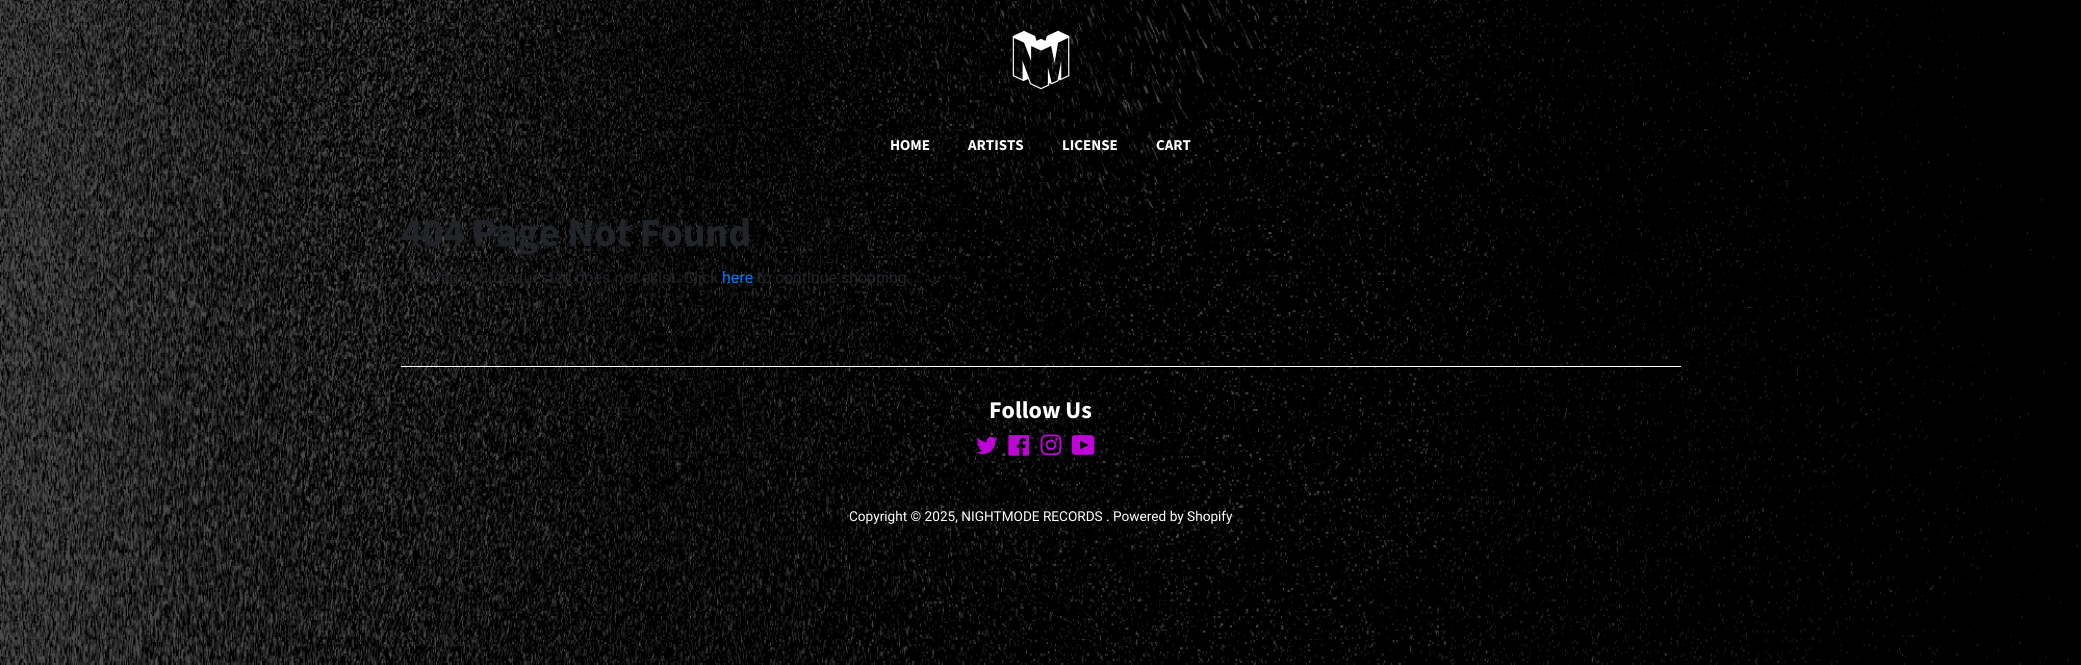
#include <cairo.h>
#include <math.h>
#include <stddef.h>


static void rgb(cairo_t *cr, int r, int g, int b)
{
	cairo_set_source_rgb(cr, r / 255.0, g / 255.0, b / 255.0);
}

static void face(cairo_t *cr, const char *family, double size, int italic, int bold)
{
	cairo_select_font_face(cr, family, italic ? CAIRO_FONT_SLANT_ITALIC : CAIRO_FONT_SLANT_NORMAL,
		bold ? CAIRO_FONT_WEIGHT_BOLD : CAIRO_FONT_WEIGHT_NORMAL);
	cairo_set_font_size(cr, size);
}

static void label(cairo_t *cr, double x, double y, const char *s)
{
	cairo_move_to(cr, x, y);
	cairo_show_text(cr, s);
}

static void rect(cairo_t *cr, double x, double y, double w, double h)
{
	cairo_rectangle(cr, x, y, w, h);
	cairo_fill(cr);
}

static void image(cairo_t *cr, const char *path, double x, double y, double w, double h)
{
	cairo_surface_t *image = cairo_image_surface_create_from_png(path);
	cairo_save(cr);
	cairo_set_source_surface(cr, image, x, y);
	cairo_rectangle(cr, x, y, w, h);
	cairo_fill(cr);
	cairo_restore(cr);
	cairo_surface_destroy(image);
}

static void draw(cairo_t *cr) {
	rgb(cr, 255, 255, 255);
	cairo_paint(cr);
	image(cr, "image0.png", 0, 0, 2081, 665);
	image(cr, "image1.png", 1012, 30, 58, 60);
	face(cr, "Source Sans Pro", 15, 0, 1);
	rgb(cr, 255, 255, 255);
	label(cr, 890, 150, "HOME");
	label(cr, 968, 150, "ARTISTS");
	label(cr, 1062, 150, "LICENSE");
	label(cr, 1156, 150, "CART");
	face(cr, "Source Sans Pro", 40, 0, 1);
	rgb(cr, 33, 37, 41);
	label(cr, 401, 246, "404 Page Not Found");
	face(cr, "Roboto", 16, 0, 0);
	label(cr, 401, 283, "The page you requested does not exist. Click");
	rgb(cr, 0, 123, 255);
	label(cr, 722, 283, "here");
	rgb(cr, 33, 37, 41);
	label(cr, 757, 283, "to continue shopping.");
	rgb(cr, 255, 255, 255);
	rect(cr, 401, 366, 1280, 1);
	face(cr, "Source Sans Pro", 24, 0, 1);
	label(cr, 989, 418, "Follow Us");
	image(cr, "image2.png", 976, 436, 22, 18);
	image(cr, "image3.png", 1008, 435, 21, 21);
	image(cr, "image4.png", 1040, 434, 22, 22);
	image(cr, "image5.png", 1071, 435, 24, 20);
	face(cr, "Roboto", 13.6, 0, 0);
	label(cr, 849, 521, "Copyright © 2025, NIGHTMODE RECORDS . Powered by Shopify");
}

int main(void) {
	cairo_surface_t *surface = cairo_image_surface_create(CAIRO_FORMAT_RGB24, 2081, 665);
	cairo_t *cr = cairo_create(surface);
	cairo_font_options_t *options = cairo_font_options_create();
	cairo_font_options_set_hint_metrics(options, CAIRO_HINT_METRICS_OFF);
	cairo_font_options_set_hint_style(options, CAIRO_HINT_STYLE_NONE);
	cairo_set_font_options(cr, options);
	cairo_set_miter_limit(cr, 4);
	draw(cr);
	cairo_surface_write_to_png(surface, "render.png");
	cairo_font_options_destroy(options);
	cairo_destroy(cr);
	cairo_surface_destroy(surface);
	return 0;
}
